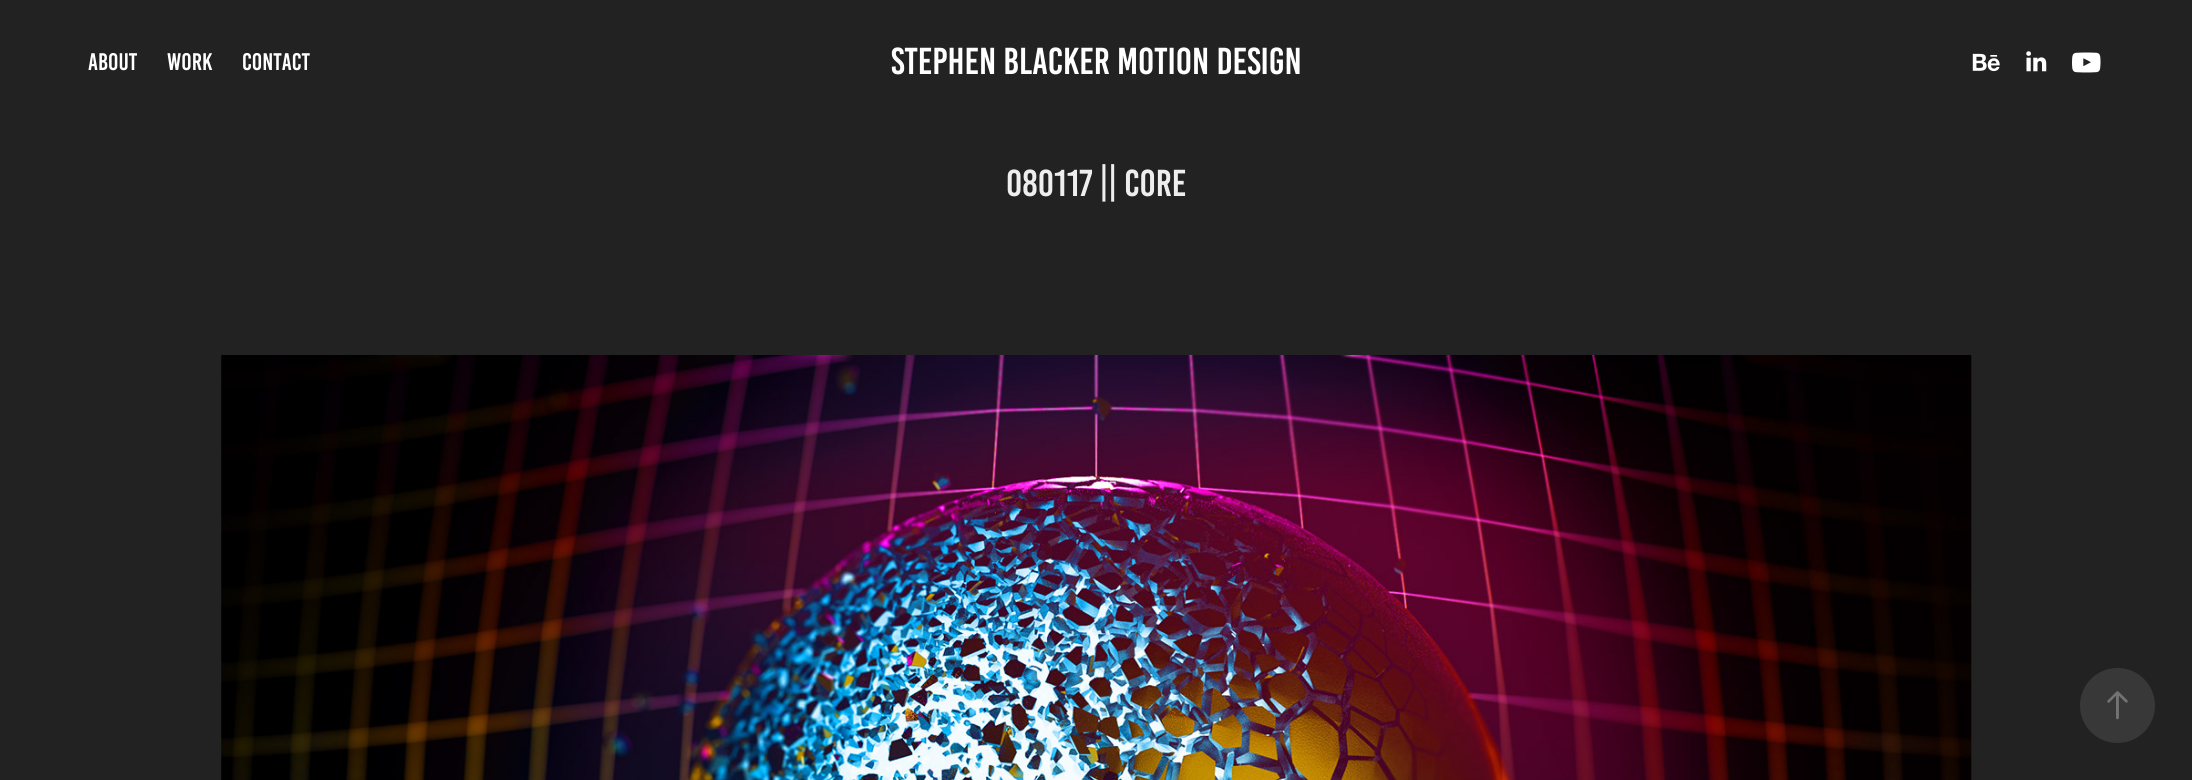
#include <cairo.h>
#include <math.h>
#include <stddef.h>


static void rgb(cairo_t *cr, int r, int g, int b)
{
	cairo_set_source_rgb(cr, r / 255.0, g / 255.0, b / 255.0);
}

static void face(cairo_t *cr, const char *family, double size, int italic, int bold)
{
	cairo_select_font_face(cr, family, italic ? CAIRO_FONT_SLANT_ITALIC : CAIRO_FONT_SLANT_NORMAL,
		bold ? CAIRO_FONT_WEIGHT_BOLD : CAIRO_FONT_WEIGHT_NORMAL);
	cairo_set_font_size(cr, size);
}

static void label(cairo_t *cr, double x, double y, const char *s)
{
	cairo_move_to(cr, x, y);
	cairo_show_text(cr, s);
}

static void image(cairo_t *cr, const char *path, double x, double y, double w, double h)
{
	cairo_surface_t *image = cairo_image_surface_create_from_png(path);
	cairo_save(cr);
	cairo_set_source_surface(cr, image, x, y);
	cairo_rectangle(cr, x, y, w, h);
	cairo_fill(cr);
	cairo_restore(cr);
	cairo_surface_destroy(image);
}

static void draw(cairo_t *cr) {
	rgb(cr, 34, 34, 34);
	cairo_paint(cr);
	face(cr, "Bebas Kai", 24, 0, 0);
	rgb(cr, 255, 255, 255);
	label(cr, 88, 70, "ABOUT");
	label(cr, 167, 70, "WORK");
	label(cr, 242, 70, "CONTACT");
	face(cr, "Bebas Kai", 37.5, 0, 0);
	label(cr, 891, 74, "STEPHEN BLACKER MOTION DESIGN");
	image(cr, "image0.png", 1972, 53, 28, 19);
	image(cr, "image1.png", 2026, 51, 21, 21);
	image(cr, "image2.png", 2072, 52, 29, 21);
	rgb(cr, 238, 238, 238);
	label(cr, 1006, 196, "080117 || Core");
	image(cr, "image3.png", 221, 355, 1751, 425);
	rgb(cr, 56, 56, 56);
	cairo_arc(cr, 2117.5, 705.5, 37.5, 0, 2 * M_PI);
	cairo_fill(cr);
	image(cr, "image4.png", 2107, 691, 21, 29);
}

int main(void) {
	cairo_surface_t *surface = cairo_image_surface_create(CAIRO_FORMAT_RGB24, 2192, 780);
	cairo_t *cr = cairo_create(surface);
	cairo_font_options_t *options = cairo_font_options_create();
	cairo_font_options_set_hint_metrics(options, CAIRO_HINT_METRICS_OFF);
	cairo_font_options_set_hint_style(options, CAIRO_HINT_STYLE_NONE);
	cairo_set_font_options(cr, options);
	cairo_set_miter_limit(cr, 4);
	draw(cr);
	cairo_surface_write_to_png(surface, "render.png");
	cairo_font_options_destroy(options);
	cairo_destroy(cr);
	cairo_surface_destroy(surface);
	return 0;
}
